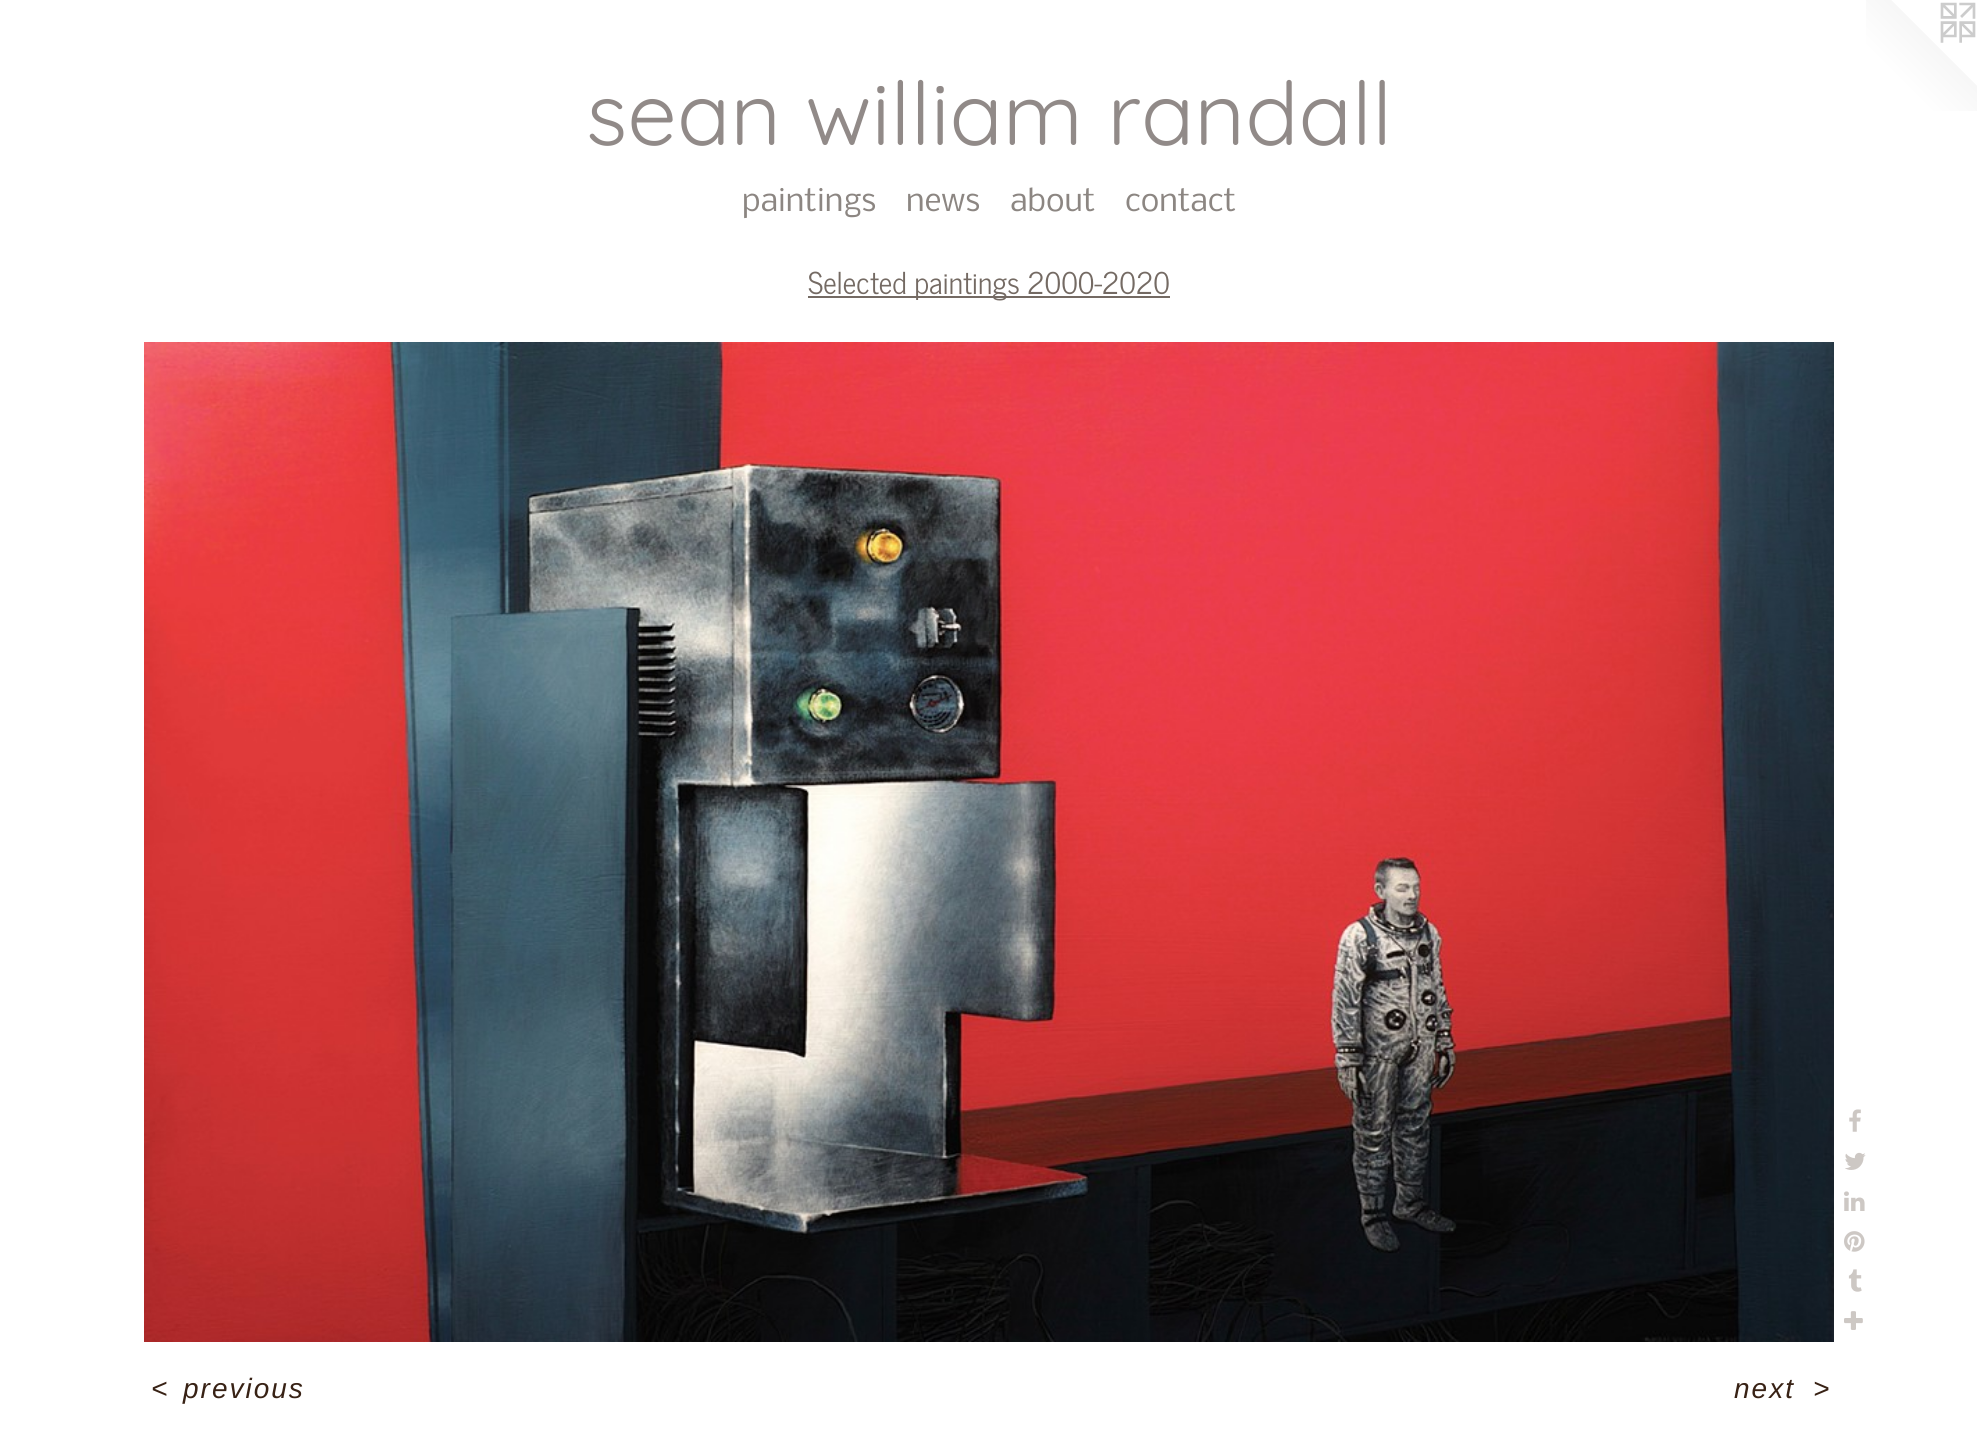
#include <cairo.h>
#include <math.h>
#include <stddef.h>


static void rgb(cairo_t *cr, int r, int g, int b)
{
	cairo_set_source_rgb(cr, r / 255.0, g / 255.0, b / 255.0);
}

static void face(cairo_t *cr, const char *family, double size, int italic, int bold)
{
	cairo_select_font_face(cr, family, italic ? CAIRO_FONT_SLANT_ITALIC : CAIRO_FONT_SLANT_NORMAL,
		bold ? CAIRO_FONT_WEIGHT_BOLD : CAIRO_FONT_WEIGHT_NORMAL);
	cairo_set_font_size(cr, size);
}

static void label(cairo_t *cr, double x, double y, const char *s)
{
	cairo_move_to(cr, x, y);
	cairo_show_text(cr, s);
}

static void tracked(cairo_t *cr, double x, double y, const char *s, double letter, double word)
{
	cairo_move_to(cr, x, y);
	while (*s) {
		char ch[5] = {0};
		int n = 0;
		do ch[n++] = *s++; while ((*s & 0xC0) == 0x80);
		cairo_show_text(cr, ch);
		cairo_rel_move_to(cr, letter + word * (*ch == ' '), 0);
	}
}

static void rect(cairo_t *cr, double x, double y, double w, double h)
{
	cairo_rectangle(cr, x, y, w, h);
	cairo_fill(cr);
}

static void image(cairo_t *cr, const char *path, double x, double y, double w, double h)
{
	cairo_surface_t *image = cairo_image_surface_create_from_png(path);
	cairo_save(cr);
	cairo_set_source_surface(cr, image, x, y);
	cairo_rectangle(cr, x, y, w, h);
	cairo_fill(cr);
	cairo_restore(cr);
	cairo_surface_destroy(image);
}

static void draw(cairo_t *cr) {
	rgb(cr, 255, 255, 255);
	cairo_paint(cr);
	face(cr, "Quicksand Light", 88, 0, 0);
	rgb(cr, 145, 138, 136);
	label(cr, 586, 145, "sean william randall");
	image(cr, "image0.png", 1866, 0, 111, 111);
	face(cr, "Nobile", 30, 0, 0);
	rgb(cr, 140, 134, 130);
	label(cr, 742, 211, "paintings");
	label(cr, 906, 211, "news");
	label(cr, 1010, 211, "about");
	label(cr, 1125, 211, "contact");
	rgb(cr, 116, 106, 99);
	rect(cr, 808, 296, 362, 2);
	face(cr, "News Cycle", 30, 0, 0);
	label(cr, 808, 294, "Selected paintings 2000-2020");
	image(cr, "image1.png", 144, 342, 1690, 1000);
	image(cr, "image2.png", 1849, 1109, 12, 23);
	image(cr, "image3.png", 1845, 1152, 21, 18);
	image(cr, "image4.png", 1844, 1191, 21, 20);
	image(cr, "image5.png", 1844, 1231, 21, 21);
	image(cr, "image6.png", 1848, 1269, 14, 23);
	image(cr, "image7.png", 1844, 1311, 19, 19);
	face(cr, "Liberation Sans", 28, 1, 0);
	rgb(cr, 56, 34, 21);
	tracked(cr, 151, 1398, "<", 2, 0);
	tracked(cr, 183, 1398, "previous", 2, 0);
	tracked(cr, 1734, 1398, "next", 2, 0);
	tracked(cr, 1813, 1398, ">", 2, 0);
}

int main(void) {
	cairo_surface_t *surface = cairo_image_surface_create(CAIRO_FORMAT_RGB24, 1977, 1429);
	cairo_t *cr = cairo_create(surface);
	cairo_font_options_t *options = cairo_font_options_create();
	cairo_font_options_set_hint_metrics(options, CAIRO_HINT_METRICS_OFF);
	cairo_font_options_set_hint_style(options, CAIRO_HINT_STYLE_NONE);
	cairo_set_font_options(cr, options);
	cairo_set_miter_limit(cr, 4);
	draw(cr);
	cairo_surface_write_to_png(surface, "render.png");
	cairo_font_options_destroy(options);
	cairo_destroy(cr);
	cairo_surface_destroy(surface);
	return 0;
}
